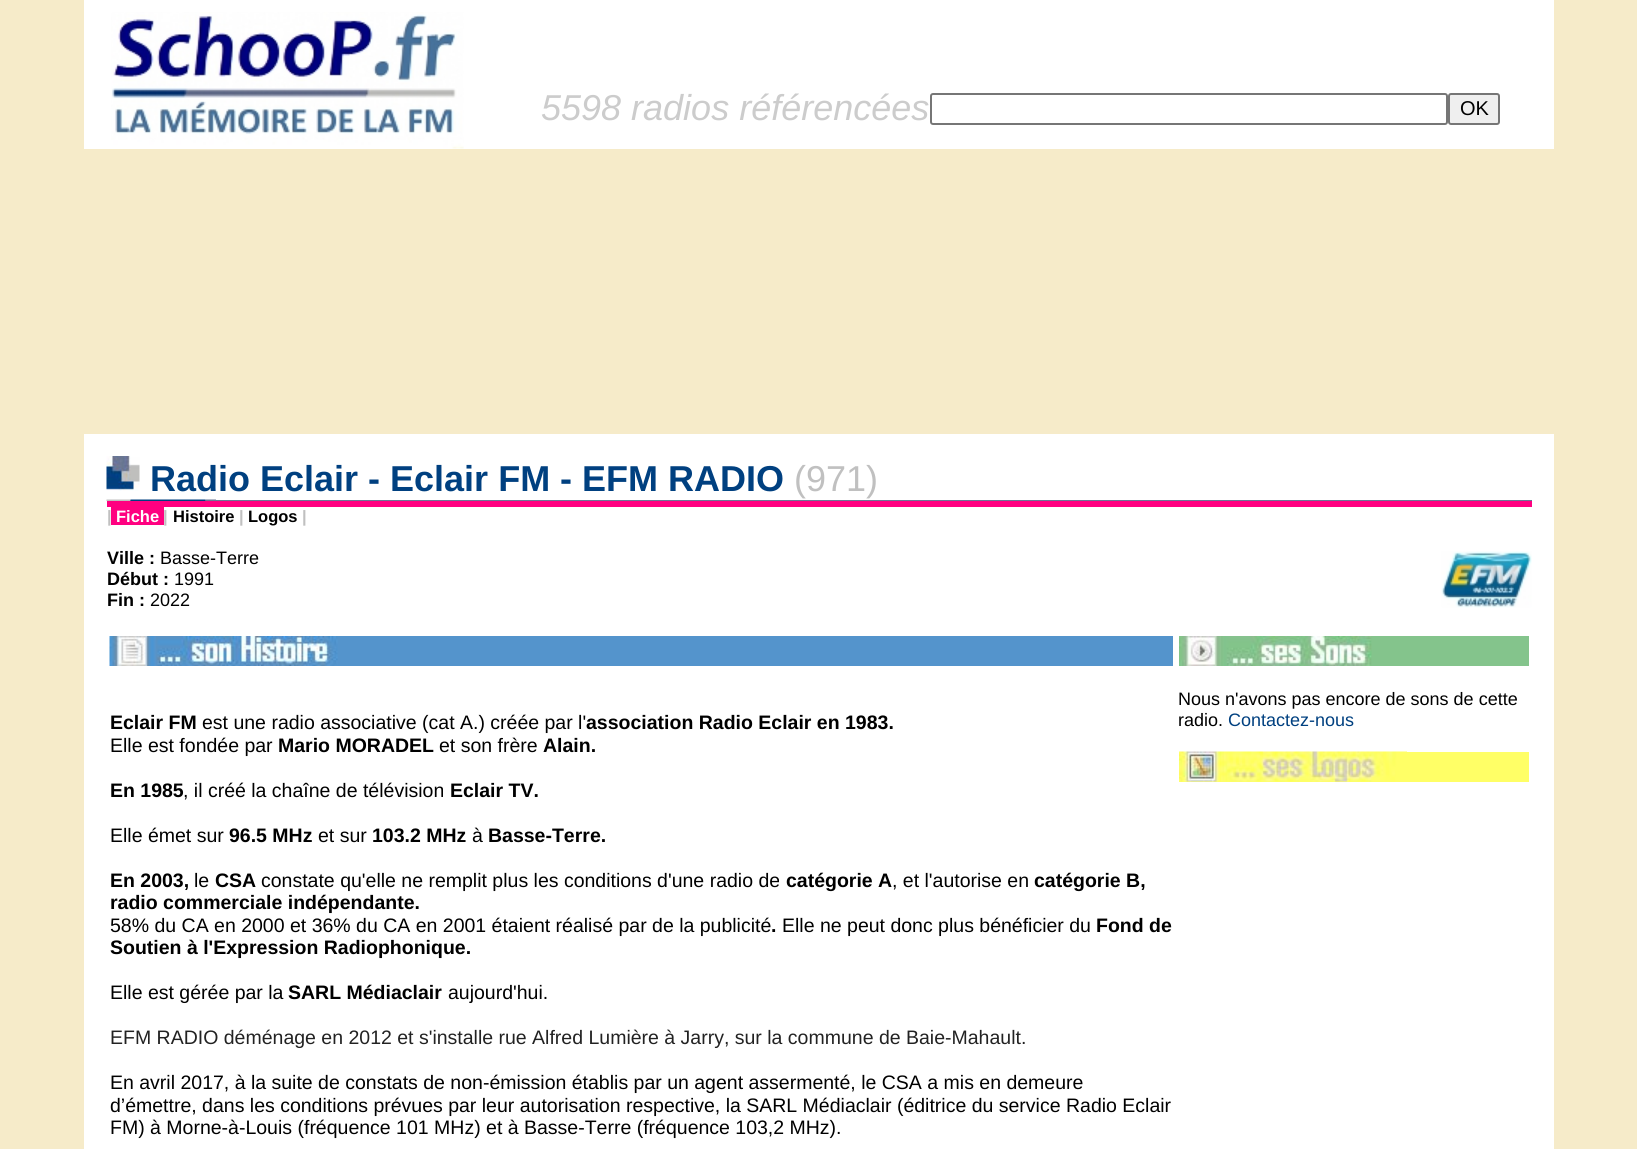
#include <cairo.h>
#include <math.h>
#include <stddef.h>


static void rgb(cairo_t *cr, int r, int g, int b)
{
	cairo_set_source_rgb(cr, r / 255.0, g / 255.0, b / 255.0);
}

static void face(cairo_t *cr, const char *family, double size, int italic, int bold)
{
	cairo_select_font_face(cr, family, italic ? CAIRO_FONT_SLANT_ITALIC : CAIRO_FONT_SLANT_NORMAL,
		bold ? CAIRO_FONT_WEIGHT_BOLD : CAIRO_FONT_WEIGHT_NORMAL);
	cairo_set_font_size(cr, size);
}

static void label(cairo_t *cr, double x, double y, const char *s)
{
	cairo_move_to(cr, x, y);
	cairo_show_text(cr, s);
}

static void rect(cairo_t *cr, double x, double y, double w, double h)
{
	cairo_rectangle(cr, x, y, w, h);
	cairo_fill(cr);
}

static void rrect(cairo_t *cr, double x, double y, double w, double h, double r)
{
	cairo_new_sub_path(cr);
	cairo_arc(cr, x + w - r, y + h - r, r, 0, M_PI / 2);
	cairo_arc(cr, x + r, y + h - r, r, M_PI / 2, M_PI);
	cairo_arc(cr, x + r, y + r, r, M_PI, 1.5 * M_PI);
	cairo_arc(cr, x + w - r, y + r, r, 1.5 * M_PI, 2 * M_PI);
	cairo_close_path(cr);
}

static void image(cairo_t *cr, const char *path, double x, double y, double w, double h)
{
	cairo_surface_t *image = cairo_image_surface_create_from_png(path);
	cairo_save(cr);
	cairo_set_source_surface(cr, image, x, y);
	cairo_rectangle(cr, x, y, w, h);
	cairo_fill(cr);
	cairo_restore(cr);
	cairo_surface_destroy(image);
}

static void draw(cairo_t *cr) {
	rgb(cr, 246, 235, 201);
	cairo_paint(cr);
	rgb(cr, 255, 255, 255);
	rect(cr, 84, 0, 1470, 149);
	image(cr, "image0.png", 111, 12, 353, 137);
	face(cr, "Liberation Sans", 36, 1, 0);
	rgb(cr, 204, 204, 204);
	label(cr, 541, 120, "5598 radios référencées");
	rrect(cr, 931, 94, 516, 30, 2);
	rgb(cr, 118, 118, 118);
	cairo_stroke(cr);
	rgb(cr, 239, 239, 239);
	rrect(cr, 1449, 94, 50, 30, 2);
	cairo_fill_preserve(cr);
	rgb(cr, 118, 118, 118);
	cairo_stroke(cr);
	face(cr, "Liberation Sans", 20, 0, 0);
	rgb(cr, 0, 0, 0);
	label(cr, 1460, 115, "OK");
	rgb(cr, 255, 255, 255);
	rect(cr, 84, 434, 1470, 715);
	image(cr, "image1.png", 106, 456, 34, 35);
	face(cr, "Liberation Sans", 36, 0, 1);
	rgb(cr, 0, 64, 128);
	label(cr, 150, 491, "Radio Eclair - Eclair FM - EFM RADIO");
	face(cr, "Liberation Sans", 36, 0, 0);
	rgb(cr, 192, 192, 192);
	label(cr, 794, 491, "(971)");
	rgb(cr, 107, 118, 148);
	rect(cr, 130, 500, 1402, 1);
	image(cr, "image2.png", 106, 499, 25, 2);
	image(cr, "image3.png", 130, 499, 76, 2);
	image(cr, "image4.png", 205, 499, 11, 2);
	rgb(cr, 255, 0, 128);
	rect(cr, 107, 501, 1425, 6);
	face(cr, "Liberation Sans", 16.5, 0, 1);
	rgb(cr, 192, 192, 192);
	label(cr, 107, 522, "|");
	rgb(cr, 255, 0, 128);
	rect(cr, 111, 507, 53, 18);
	rgb(cr, 255, 255, 255);
	label(cr, 116, 522, "Fiche");
	rgb(cr, 192, 192, 192);
	label(cr, 163, 522, "|");
	rgb(cr, 0, 0, 0);
	label(cr, 173, 522, "Histoire");
	rgb(cr, 192, 192, 192);
	label(cr, 239, 522, "|");
	rgb(cr, 0, 0, 0);
	label(cr, 248, 522, "Logos");
	rgb(cr, 192, 192, 192);
	label(cr, 302, 522, "|");
	face(cr, "Liberation Sans", 18, 0, 1);
	rgb(cr, 0, 0, 0);
	label(cr, 107, 564, "Ville :");
	face(cr, "Liberation Sans", 18, 0, 0);
	label(cr, 160, 564, "Basse-Terre");
	face(cr, "Liberation Sans", 18, 0, 1);
	label(cr, 107, 585, "Début :");
	face(cr, "Liberation Sans", 18, 0, 0);
	label(cr, 174, 585, "1991");
	face(cr, "Liberation Sans", 18, 0, 1);
	label(cr, 107, 606, "Fin :");
	face(cr, "Liberation Sans", 18, 0, 0);
	label(cr, 150, 606, "2022");
	image(cr, "image5.png", 1441, 551, 91, 57);
	rgb(cr, 132, 196, 140);
	rect(cr, 1372, 636, 157, 30);
	image(cr, "image6.png", 1179, 636, 193, 30);
	rgb(cr, 0, 0, 0);
	label(cr, 1178, 705, "Nous n'avons pas encore de sons de cette");
	label(cr, 1178, 726, "radio.");
	rgb(cr, 0, 64, 128);
	label(cr, 1228, 726, "Contactez-nous");
	rgb(cr, 255, 255, 102);
	rect(cr, 1179, 752, 350, 30);
	image(cr, "image7.png", 1179, 751, 228, 31);
	rgb(cr, 84, 148, 204);
	rect(cr, 337, 636, 836, 30);
	image(cr, "image8.png", 109, 636, 229, 30);
	face(cr, "Liberation Sans", 19.5, 0, 1);
	rgb(cr, 0, 0, 0);
	label(cr, 110, 729, "Eclair FM");
	face(cr, "Liberation Sans", 19.5, 0, 0);
	label(cr, 202, 729, "est une radio associative (cat A.) créée par l'");
	face(cr, "Liberation Sans", 19.5, 0, 1);
	label(cr, 586, 729, "association Radio Eclair en 1983.");
	face(cr, "Liberation Sans", 19.5, 0, 0);
	label(cr, 110, 752, "Elle est fondée par");
	face(cr, "Liberation Sans", 19.5, 0, 1);
	label(cr, 278, 752, "Mario MORADEL");
	face(cr, "Liberation Sans", 19.5, 0, 0);
	label(cr, 439, 752, "et son frère");
	face(cr, "Liberation Sans", 19.5, 0, 1);
	label(cr, 543, 752, "Alain.");
	label(cr, 110, 797, "En 1985");
	face(cr, "Liberation Sans", 19.5, 0, 0);
	label(cr, 183, 797, ", il créé la chaîne de télévision");
	face(cr, "Liberation Sans", 19.5, 0, 1);
	label(cr, 450, 797, "Eclair TV.");
	face(cr, "Liberation Sans", 19.5, 0, 0);
	label(cr, 110, 842, "Elle émet sur");
	face(cr, "Liberation Sans", 19.5, 0, 1);
	label(cr, 229, 842, "96.5 MHz");
	face(cr, "Liberation Sans", 19.5, 0, 0);
	label(cr, 318, 842, "et sur");
	face(cr, "Liberation Sans", 19.5, 0, 1);
	label(cr, 372, 842, "103.2 MHz");
	face(cr, "Liberation Sans", 19.5, 0, 0);
	label(cr, 472, 842, "à");
	face(cr, "Liberation Sans", 19.5, 0, 1);
	label(cr, 488, 842, "Basse-Terre.");
	label(cr, 110, 887, "En 2003,");
	face(cr, "Liberation Sans", 19.5, 0, 0);
	label(cr, 194, 887, "le");
	face(cr, "Liberation Sans", 19.5, 0, 1);
	label(cr, 215, 887, "CSA");
	face(cr, "Liberation Sans", 19.5, 0, 0);
	label(cr, 261, 887, "constate qu'elle ne remplit plus les conditions d'une radio de");
	face(cr, "Liberation Sans", 19.5, 0, 1);
	label(cr, 786, 887, "catégorie A");
	face(cr, "Liberation Sans", 19.5, 0, 0);
	label(cr, 892, 887, ", et l'autorise en");
	face(cr, "Liberation Sans", 19.5, 0, 1);
	label(cr, 1034, 887, "catégorie B,");
	label(cr, 110, 909, "radio commerciale indépendante.");
	face(cr, "Liberation Sans", 19.5, 0, 0);
	label(cr, 110, 932, "58% du CA en 2000 et 36% du CA en 2001 étaient réalisé par de la publicité");
	face(cr, "Liberation Sans", 19.5, 0, 1);
	label(cr, 771, 932, ".");
	face(cr, "Liberation Sans", 19.5, 0, 0);
	label(cr, 782, 932, "Elle ne peut donc plus bénéficier du");
	face(cr, "Liberation Sans", 19.5, 0, 1);
	label(cr, 1096, 932, "Fond de");
	label(cr, 110, 954, "Soutien à l'Expression Radiophonique.");
	face(cr, "Liberation Sans", 19.5, 0, 0);
	label(cr, 110, 999, "Elle est gérée par la");
	face(cr, "Liberation Sans", 19.5, 0, 1);
	label(cr, 288, 999, "SARL Médiaclair");
	face(cr, "Liberation Sans", 19.5, 0, 0);
	label(cr, 448, 999, "aujourd'hui.");
	rgb(cr, 34, 34, 34);
	label(cr, 110, 1044, "EFM RADIO déménage en 2012 et s'installe rue Alfred Lumière à Jarry, sur la commune de Baie-Mahault.");
	rgb(cr, 0, 0, 0);
	label(cr, 110, 1089, "En avril 2017, à la suite de constats de non-émission établis par un agent assermenté, le CSA a mis en demeure");
	label(cr, 110, 1112, "d’émettre, dans les conditions prévues par leur autorisation respective, la SARL Médiaclair (éditrice du service Radio Eclair");
	label(cr, 110, 1134, "FM) à Morne-à-Louis (fréquence 101 MHz) et à Basse-Terre (fréquence 103,2 MHz).");
}

int main(void) {
	cairo_surface_t *surface = cairo_image_surface_create(CAIRO_FORMAT_RGB24, 1637, 1149);
	cairo_t *cr = cairo_create(surface);
	cairo_font_options_t *options = cairo_font_options_create();
	cairo_font_options_set_hint_metrics(options, CAIRO_HINT_METRICS_OFF);
	cairo_font_options_set_hint_style(options, CAIRO_HINT_STYLE_NONE);
	cairo_set_font_options(cr, options);
	cairo_set_miter_limit(cr, 4);
	draw(cr);
	cairo_surface_write_to_png(surface, "render.png");
	cairo_font_options_destroy(options);
	cairo_destroy(cr);
	cairo_surface_destroy(surface);
	return 0;
}
